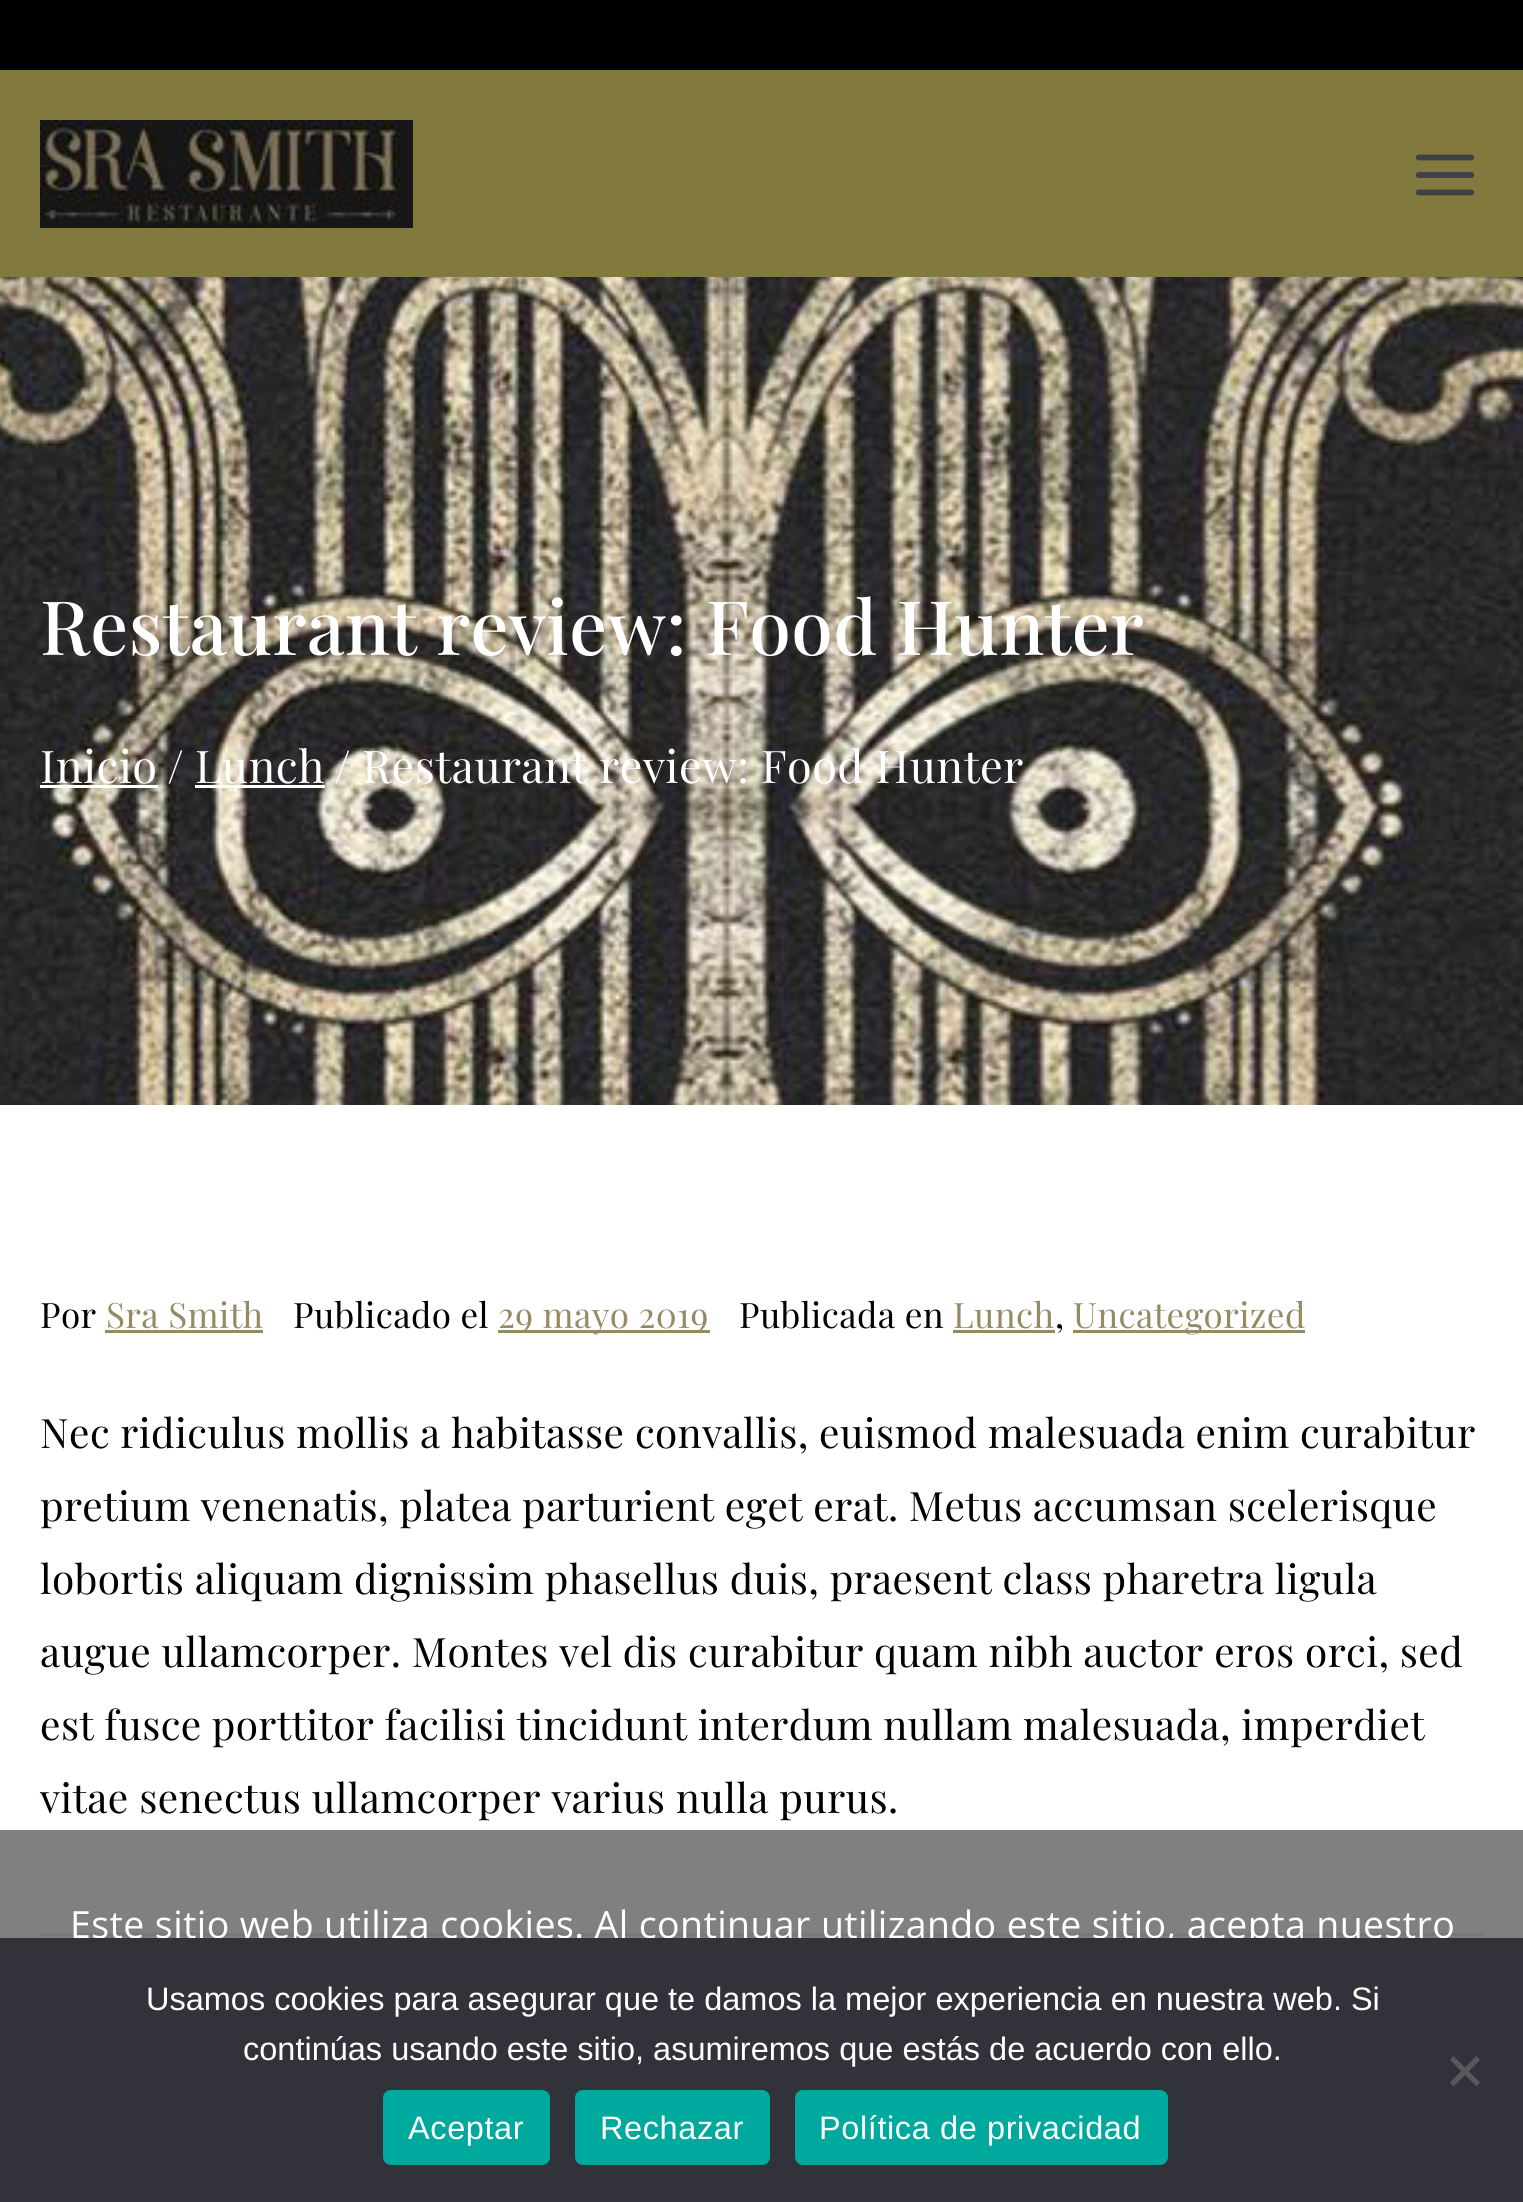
#include <cairo.h>
#include <math.h>
#include <stddef.h>


static void rgb(cairo_t *cr, int r, int g, int b)
{
	cairo_set_source_rgb(cr, r / 255.0, g / 255.0, b / 255.0);
}

static void face(cairo_t *cr, const char *family, double size, int italic, int bold)
{
	cairo_select_font_face(cr, family, italic ? CAIRO_FONT_SLANT_ITALIC : CAIRO_FONT_SLANT_NORMAL,
		bold ? CAIRO_FONT_WEIGHT_BOLD : CAIRO_FONT_WEIGHT_NORMAL);
	cairo_set_font_size(cr, size);
}

static void label(cairo_t *cr, double x, double y, const char *s)
{
	cairo_move_to(cr, x, y);
	cairo_show_text(cr, s);
}

static void tracked(cairo_t *cr, double x, double y, const char *s, double letter, double word)
{
	cairo_move_to(cr, x, y);
	while (*s) {
		char ch[5] = {0};
		int n = 0;
		do ch[n++] = *s++; while ((*s & 0xC0) == 0x80);
		cairo_show_text(cr, ch);
		cairo_rel_move_to(cr, letter + word * (*ch == ' '), 0);
	}
}

static void rect(cairo_t *cr, double x, double y, double w, double h)
{
	cairo_rectangle(cr, x, y, w, h);
	cairo_fill(cr);
}

static void rrect(cairo_t *cr, double x, double y, double w, double h, double r)
{
	cairo_new_sub_path(cr);
	cairo_arc(cr, x + w - r, y + h - r, r, 0, M_PI / 2);
	cairo_arc(cr, x + r, y + h - r, r, M_PI / 2, M_PI);
	cairo_arc(cr, x + r, y + r, r, M_PI, 1.5 * M_PI);
	cairo_arc(cr, x + w - r, y + r, r, 1.5 * M_PI, 2 * M_PI);
	cairo_close_path(cr);
}

static void image(cairo_t *cr, const char *path, double x, double y, double w, double h)
{
	cairo_surface_t *image = cairo_image_surface_create_from_png(path);
	cairo_save(cr);
	cairo_set_source_surface(cr, image, x, y);
	cairo_rectangle(cr, x, y, w, h);
	cairo_fill(cr);
	cairo_restore(cr);
	cairo_surface_destroy(image);
}

static void draw(cairo_t *cr) {
	rgb(cr, 0, 0, 0);
	cairo_paint(cr);
	rgb(cr, 129, 121, 61);
	rect(cr, 0, 70, 1523, 207);
	image(cr, "image0.png", 40, 120, 373, 108);
	image(cr, "image1.png", 1415, 154, 60, 42);
	image(cr, "image2.png", 0, 277, 1523, 828);
	face(cr, "Playfair Display Medium", 75, 0, 0);
	rgb(cr, 255, 255, 255);
	tracked(cr, 40, 655, "Restaurant review: Food Hunter", 0.4, 0);
	face(cr, "Playfair Display", 45, 0, 0);
	tracked(cr, 40, 783, "Inicio", 0.4, 0);
	rect(cr, 40, 785, 118, 3);
	tracked(cr, 167, 783, "/", 0.4, 0);
	tracked(cr, 195, 783, "Lunch", 0.4, 0);
	rect(cr, 195, 785, 130, 3);
	tracked(cr, 334, 783, "/", 0.4, 0);
	tracked(cr, 362, 783, "Restaurant review: Food Hunter", 0.4, 0);
	rect(cr, 0, 1105, 1523, 725);
	rgb(cr, 128, 128, 128);
	rect(cr, 0, 1830, 1523, 108);
	face(cr, "Playfair Display", 35, 0, 0);
	rgb(cr, 0, 0, 0);
	tracked(cr, 40, 1328, "Por", 0.4, 0);
	rgb(cr, 150, 138, 100);
	tracked(cr, 106, 1328, "Sra Smith", 0.4, 0);
	rect(cr, 105, 1330, 158, 3);
	rgb(cr, 0, 0, 0);
	tracked(cr, 293, 1328, "Publicado el", 0.4, 0);
	rgb(cr, 150, 138, 100);
	rect(cr, 498, 1330, 212, 3);
	tracked(cr, 498, 1328, "29 mayo 2019", 0.4, 0);
	rgb(cr, 0, 0, 0);
	tracked(cr, 739, 1328, "Publicada en", 0.4, 0);
	rgb(cr, 150, 138, 100);
	tracked(cr, 953, 1328, "Lunch", 0.4, 0);
	rect(cr, 953, 1330, 102, 3);
	rgb(cr, 0, 0, 0);
	tracked(cr, 1055, 1328, ",", 0.4, 0);
	rgb(cr, 150, 138, 100);
	rect(cr, 1073, 1330, 232, 3);
	tracked(cr, 1073, 1328, "Uncategorized", 0.4, 0);
	face(cr, "Playfair Display", 40.5, 0, 0);
	rgb(cr, 0, 0, 0);
	tracked(cr, 40, 1448, "Nec ridiculus mollis a habitasse convallis, euismod malesuada enim curabitur", 0.4, -0.1);
	tracked(cr, 40, 1521, "pretium venenatis, platea parturient eget erat. Metus accumsan scelerisque", 0.4, -0.25);
	tracked(cr, 40, 1594, "lobortis aliquam dignissim phasellus duis, praesent class pharetra ligula", 0.4, -0.1);
	tracked(cr, 40, 1667, "augue ullamcorper. Montes vel dis curabitur quam nibh auctor eros orci, sed", 0.4, 0);
	tracked(cr, 40, 1740, "est fusce porttitor facilisi tincidunt interdum nullam malesuada, imperdiet", 0.4, -0.25);
	tracked(cr, 40, 1813, "vitae senectus ullamcorper varius nulla purus.", 0.4, 0);
	rgb(cr, 120, 120, 120);
	rect(cr, 40, 1933, 1445, 3);
	face(cr, "Open Sans", 37.5, 0, 0);
	rgb(cr, 255, 255, 255);
	tracked(cr, 70, 1938, "Este sitio web utiliza cookies. Al continuar utilizando este sitio, acepta nuestro", 0.4, 0);
	rgb(cr, 50, 50, 58);
	rect(cr, 0, 1938, 1523, 264);
	face(cr, "Liberation Sans", 32.5, 0, 0);
	rgb(cr, 255, 255, 255);
	label(cr, 146, 2010, "Usamos cookies para asegurar que te damos la mejor experiencia en nuestra web. Si");
	label(cr, 243, 2060, "continúas usando este sitio, asumiremos que estás de acuerdo con ello.");
	rgb(cr, 89, 89, 93);
	cairo_new_path(cr);
	cairo_move_to(cr, 1476.5, 2056);
	cairo_line_to(cr, 1480, 2060);
	cairo_line_to(cr, 1453.5, 2086.5);
	cairo_line_to(cr, 1450, 2082.5);
	cairo_close_path(cr);
	cairo_fill(cr);
	cairo_new_path(cr);
	cairo_move_to(cr, 1450, 2060);
	cairo_line_to(cr, 1453.5, 2056);
	cairo_line_to(cr, 1480, 2082.5);
	cairo_line_to(cr, 1476.5, 2086.5);
	cairo_close_path(cr);
	cairo_fill(cr);
	rgb(cr, 0, 169, 157);
	rrect(cr, 383, 2090, 167, 75, 8);
	cairo_fill(cr);
	rgb(cr, 255, 255, 255);
	tracked(cr, 408, 2139, "Aceptar", 0.6, 0);
	rgb(cr, 0, 169, 157);
	rrect(cr, 575, 2090, 195, 75, 8);
	cairo_fill(cr);
	rgb(cr, 255, 255, 255);
	tracked(cr, 600, 2139, "Rechazar", 0.6, 0);
	rgb(cr, 0, 169, 157);
	rrect(cr, 795, 2090, 373, 75, 8);
	cairo_fill(cr);
	rgb(cr, 255, 255, 255);
	tracked(cr, 819, 2139, "Política de privacidad", 0.6, 0);
}

int main(void) {
	cairo_surface_t *surface = cairo_image_surface_create(CAIRO_FORMAT_RGB24, 1523, 2202);
	cairo_t *cr = cairo_create(surface);
	cairo_font_options_t *options = cairo_font_options_create();
	cairo_font_options_set_hint_metrics(options, CAIRO_HINT_METRICS_OFF);
	cairo_font_options_set_hint_style(options, CAIRO_HINT_STYLE_NONE);
	cairo_set_font_options(cr, options);
	cairo_set_miter_limit(cr, 4);
	draw(cr);
	cairo_surface_write_to_png(surface, "render.png");
	cairo_font_options_destroy(options);
	cairo_destroy(cr);
	cairo_surface_destroy(surface);
	return 0;
}
